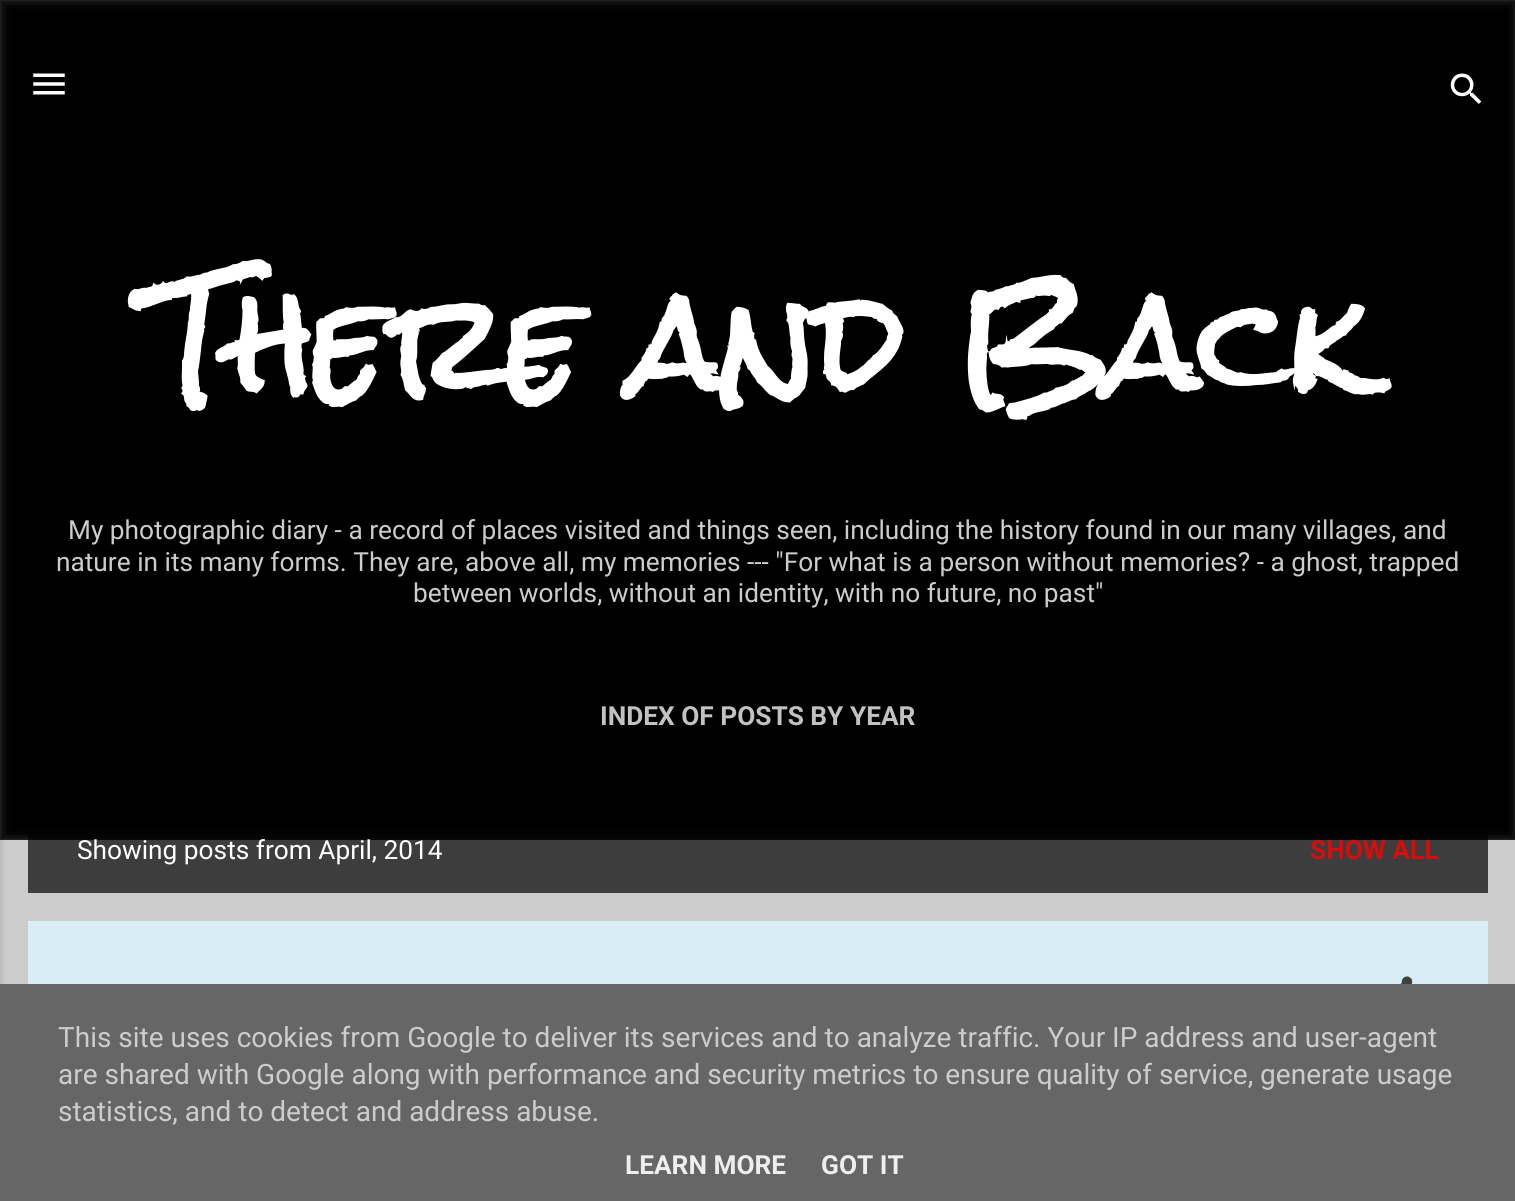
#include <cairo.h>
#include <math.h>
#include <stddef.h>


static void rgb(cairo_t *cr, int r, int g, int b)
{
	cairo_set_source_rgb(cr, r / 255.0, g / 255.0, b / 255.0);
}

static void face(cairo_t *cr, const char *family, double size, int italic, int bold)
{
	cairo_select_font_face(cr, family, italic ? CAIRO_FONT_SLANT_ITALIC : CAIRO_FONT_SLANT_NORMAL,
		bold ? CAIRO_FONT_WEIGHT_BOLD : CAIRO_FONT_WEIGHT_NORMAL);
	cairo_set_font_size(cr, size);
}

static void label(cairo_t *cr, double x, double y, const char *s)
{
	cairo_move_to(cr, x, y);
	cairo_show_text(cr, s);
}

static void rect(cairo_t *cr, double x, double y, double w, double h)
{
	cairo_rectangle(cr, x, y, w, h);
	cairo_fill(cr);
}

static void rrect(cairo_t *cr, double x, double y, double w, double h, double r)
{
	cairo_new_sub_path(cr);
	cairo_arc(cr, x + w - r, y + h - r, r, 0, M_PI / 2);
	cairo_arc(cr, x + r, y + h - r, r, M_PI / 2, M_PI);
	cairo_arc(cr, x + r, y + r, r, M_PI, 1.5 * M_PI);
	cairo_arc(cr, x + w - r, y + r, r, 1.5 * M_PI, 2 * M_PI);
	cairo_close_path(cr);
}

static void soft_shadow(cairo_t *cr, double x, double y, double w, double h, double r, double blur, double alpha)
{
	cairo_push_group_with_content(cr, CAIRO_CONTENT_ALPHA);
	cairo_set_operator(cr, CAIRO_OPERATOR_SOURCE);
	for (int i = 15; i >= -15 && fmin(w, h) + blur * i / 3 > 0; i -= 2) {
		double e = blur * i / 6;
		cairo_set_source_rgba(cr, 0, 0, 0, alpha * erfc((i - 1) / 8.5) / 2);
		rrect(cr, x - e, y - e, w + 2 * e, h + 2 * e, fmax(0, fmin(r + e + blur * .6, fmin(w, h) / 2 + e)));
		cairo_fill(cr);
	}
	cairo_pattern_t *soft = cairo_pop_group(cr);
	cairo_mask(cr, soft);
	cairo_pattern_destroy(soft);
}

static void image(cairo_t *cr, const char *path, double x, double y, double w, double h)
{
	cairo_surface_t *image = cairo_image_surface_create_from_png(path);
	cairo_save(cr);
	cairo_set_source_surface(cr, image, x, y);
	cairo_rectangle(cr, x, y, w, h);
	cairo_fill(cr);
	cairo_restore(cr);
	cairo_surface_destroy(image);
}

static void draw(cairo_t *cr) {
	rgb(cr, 204, 204, 204);
	cairo_paint(cr);
	rgb(cr, 0, 0, 0);
	soft_shadow(cr, -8, 2, 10, 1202, 0, 2.5, 0.1);
	cairo_save(cr);
	cairo_rectangle(cr, 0, 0, 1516, 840);
	cairo_clip(cr);
	soft_shadow(cr, -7, -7, 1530, 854, 0, 7, 1);
	cairo_restore(cr);
	image(cr, "image0.png", 33, 73, 32, 22);
	image(cr, "image1.png", 1450, 73, 32, 31);
	face(cr, "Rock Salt", 126, 0, 1);
	rgb(cr, 255, 255, 255);
	label(cr, 148, 394, "There and Back");
	face(cr, "Roboto", 26.25, 0, 0);
	rgb(cr, 204, 204, 204);
	label(cr, 68, 539, "My photographic diary - a record of places visited and things seen, including the history found in our many villages, and");
	label(cr, 56, 571, "nature in its many forms. They are, above all, my memories --- \"For what is a person without memories? - a ghost, trapped");
	label(cr, 413, 602, "between worlds, without an identity, with no future, no past\"");
	face(cr, "Roboto", 26.25, 0, 1);
	rgb(cr, 194, 194, 194);
	label(cr, 600, 725, "INDEX OF POSTS BY YEAR");
	cairo_set_source_rgba(cr, 0, 0, 0, 0.7);
	rect(cr, 28, 832, 1460, 61);
	face(cr, "Roboto", 26.25, 0, 0);
	rgb(cr, 255, 255, 255);
	label(cr, 77, 859, "Showing posts from April, 2014");
	face(cr, "Roboto", 26.25, 0, 1);
	rgb(cr, 217, 12, 12);
	label(cr, 1310, 859, "SHOW ALL");
	rgb(cr, 216, 237, 245);
	rect(cr, 28, 921, 1460, 63);
	image(cr, "image2.png", 1400, 976, 13, 8);
	rgb(cr, 102, 102, 102);
	rect(cr, 0, 984, 1515, 217);
	face(cr, "Roboto", 28, 0, 0);
	rgb(cr, 204, 204, 204);
	label(cr, 58, 1047, "This site uses cookies from Google to deliver its services and to analyze traffic. Your IP address and user-agent");
	label(cr, 58, 1084, "are shared with Google along with performance and security metrics to ensure quality of service, generate usage");
	label(cr, 58, 1121, "statistics, and to detect and address abuse.");
	face(cr, "Roboto", 26.25, 0, 1);
	rgb(cr, 238, 238, 238);
	label(cr, 625, 1174, "LEARN MORE");
	label(cr, 821, 1174, "GOT IT");
}

int main(void) {
	cairo_surface_t *surface = cairo_image_surface_create(CAIRO_FORMAT_RGB24, 1515, 1201);
	cairo_t *cr = cairo_create(surface);
	cairo_font_options_t *options = cairo_font_options_create();
	cairo_font_options_set_hint_metrics(options, CAIRO_HINT_METRICS_OFF);
	cairo_font_options_set_hint_style(options, CAIRO_HINT_STYLE_NONE);
	cairo_set_font_options(cr, options);
	cairo_set_miter_limit(cr, 4);
	draw(cr);
	cairo_surface_write_to_png(surface, "render.png");
	cairo_font_options_destroy(options);
	cairo_destroy(cr);
	cairo_surface_destroy(surface);
	return 0;
}
